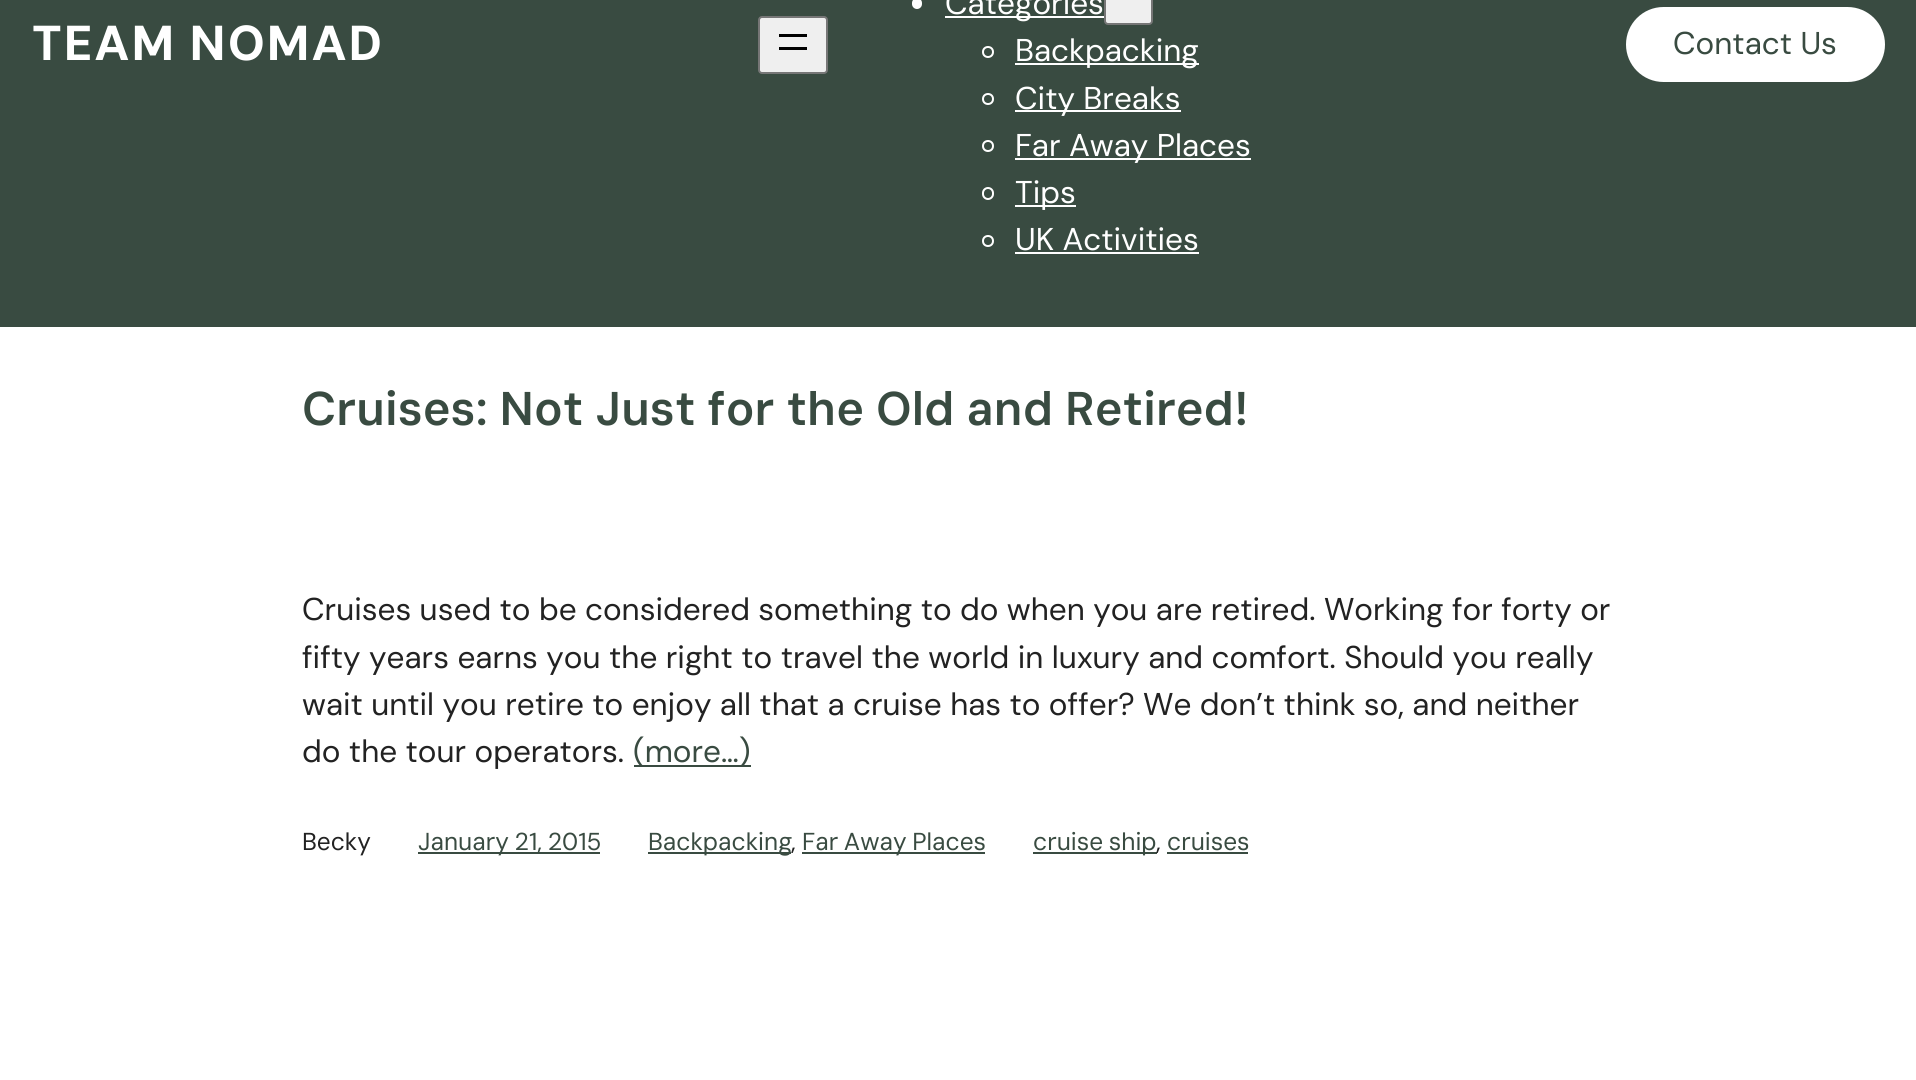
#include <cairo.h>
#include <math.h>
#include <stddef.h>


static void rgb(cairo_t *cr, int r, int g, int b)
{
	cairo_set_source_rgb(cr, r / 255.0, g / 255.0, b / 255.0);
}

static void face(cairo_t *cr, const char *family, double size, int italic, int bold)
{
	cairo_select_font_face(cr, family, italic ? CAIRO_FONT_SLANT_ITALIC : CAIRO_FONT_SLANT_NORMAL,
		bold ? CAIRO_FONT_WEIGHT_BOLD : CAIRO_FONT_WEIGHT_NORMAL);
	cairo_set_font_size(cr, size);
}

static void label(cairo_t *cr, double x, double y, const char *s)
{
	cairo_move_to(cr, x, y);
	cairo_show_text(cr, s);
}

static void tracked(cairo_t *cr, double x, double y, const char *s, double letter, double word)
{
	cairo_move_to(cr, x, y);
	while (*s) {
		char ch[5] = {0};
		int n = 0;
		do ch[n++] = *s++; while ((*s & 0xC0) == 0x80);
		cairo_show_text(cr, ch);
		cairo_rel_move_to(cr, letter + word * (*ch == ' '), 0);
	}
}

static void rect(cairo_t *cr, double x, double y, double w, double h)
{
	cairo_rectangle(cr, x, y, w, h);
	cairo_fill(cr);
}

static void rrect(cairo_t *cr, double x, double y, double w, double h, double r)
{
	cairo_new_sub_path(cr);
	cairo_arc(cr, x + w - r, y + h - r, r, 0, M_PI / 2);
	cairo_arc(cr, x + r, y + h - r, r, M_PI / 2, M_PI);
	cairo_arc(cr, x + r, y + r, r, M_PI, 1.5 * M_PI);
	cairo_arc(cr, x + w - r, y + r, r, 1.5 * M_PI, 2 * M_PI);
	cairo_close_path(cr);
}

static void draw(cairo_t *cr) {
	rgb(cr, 255, 255, 255);
	cairo_paint(cr);
	rgb(cr, 57, 75, 65);
	rect(cr, 0, 0, 1916, 327);
	face(cr, "DM Sans ExtraBold", 49, 0, 0);
	rgb(cr, 255, 255, 255);
	tracked(cr, 32, 60, "TEAM NOMAD", 1.75, 0);
	rgb(cr, 239, 239, 239);
	rrect(cr, 759, 17, 68, 56, 3);
	cairo_fill_preserve(cr);
	rgb(cr, 118, 118, 118);
	cairo_stroke(cr);
	rgb(cr, 0, 0, 0);
	rect(cr, 779, 34, 28, 3);
	rect(cr, 779, 47, 28, 3);
	rgb(cr, 255, 255, 255);
	rrect(cr, 912, -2, 10, 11, 5);
	cairo_fill(cr);
	rect(cr, 945, 16, 159, 2);
	face(cr, "DM Sans", 31.5, 0, 0);
	label(cr, 945, 14, "Categories");
	rgb(cr, 239, 239, 239);
	rrect(cr, 1105, -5, 47, 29, 3);
	cairo_fill_preserve(cr);
	rgb(cr, 118, 118, 118);
	cairo_stroke(cr);
	cairo_arc(cr, 988, 52, 5, 0, 2 * M_PI);
	rgb(cr, 255, 255, 255);
	cairo_stroke(cr);
	rect(cr, 1015, 63, 184, 2);
	label(cr, 1015, 61, "Backpacking");
	cairo_new_path(cr);
	cairo_arc(cr, 988, 99, 5, 0, 2 * M_PI);
	cairo_stroke(cr);
	rect(cr, 1015, 110, 166, 2);
	label(cr, 1015, 109, "City Breaks");
	cairo_new_path(cr);
	cairo_arc(cr, 988, 146, 5, 0, 2 * M_PI);
	cairo_stroke(cr);
	rect(cr, 1015, 158, 236, 2);
	label(cr, 1015, 156, "Far Away Places");
	rrect(cr, 983, 188, 10, 11, 5);
	cairo_stroke(cr);
	rect(cr, 1015, 205, 61, 2);
	label(cr, 1015, 203, "Tips");
	cairo_new_path(cr);
	cairo_arc(cr, 988, 241, 5, 0, 2 * M_PI);
	cairo_stroke(cr);
	label(cr, 1015, 250, "UK Activities");
	rect(cr, 1015, 252, 184, 2);
	rrect(cr, 1626, 7, 259, 75, 37.5);
	cairo_fill(cr);
	rgb(cr, 57, 75, 65);
	label(cr, 1673, 54, "Contact Us");
	face(cr, "DM Sans SemiBold", 47.25, 0, 0);
	tracked(cr, 302, 425, "Cruises: Not Just for the Old and Retired!", 0, 0.25);
	face(cr, "DM Sans", 31.5, 0, 0);
	rgb(cr, 34, 34, 34);
	label(cr, 302, 620, "Cruises used to be considered something to do when you are retired. Working for forty or");
	tracked(cr, 302, 668, "fifty years earns you the right to travel the world in luxury and comfort. Should you really", 0, 0.1);
	label(cr, 302, 715, "wait until you retire to enjoy all that a cruise has to offer? We don’t think so, and neither");
	label(cr, 302, 762, "do the tour operators.");
	rgb(cr, 57, 75, 65);
	rect(cr, 634, 765, 117, 2);
	label(cr, 633, 762, "(more…)");
	face(cr, "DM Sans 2", 24.5, 0, 0);
	rgb(cr, 34, 34, 34);
	label(cr, 302, 850, "Becky");
	rgb(cr, 57, 75, 65);
	rect(cr, 418, 852, 182, 2);
	tracked(cr, 418, 850, "January 21, 2015", 0, -1);
	rect(cr, 648, 852, 143, 2);
	label(cr, 648, 850, "Backpacking");
	rgb(cr, 34, 34, 34);
	label(cr, 791, 850, ",");
	rgb(cr, 57, 75, 65);
	rect(cr, 802, 852, 183, 2);
	tracked(cr, 802, 850, "Far Away Places", 0, -1);
	rect(cr, 1033, 852, 124, 2);
	tracked(cr, 1033, 850, "cruise ship", 0, -1);
	rgb(cr, 34, 34, 34);
	label(cr, 1156, 850, ",");
	rgb(cr, 57, 75, 65);
	label(cr, 1167, 850, "cruises");
	rect(cr, 1167, 852, 81, 2);
}

int main(void) {
	cairo_surface_t *surface = cairo_image_surface_create(CAIRO_FORMAT_RGB24, 1916, 1080);
	cairo_t *cr = cairo_create(surface);
	cairo_font_options_t *options = cairo_font_options_create();
	cairo_font_options_set_hint_metrics(options, CAIRO_HINT_METRICS_OFF);
	cairo_font_options_set_hint_style(options, CAIRO_HINT_STYLE_NONE);
	cairo_set_font_options(cr, options);
	cairo_set_miter_limit(cr, 4);
	draw(cr);
	cairo_surface_write_to_png(surface, "render.png");
	cairo_font_options_destroy(options);
	cairo_destroy(cr);
	cairo_surface_destroy(surface);
	return 0;
}
